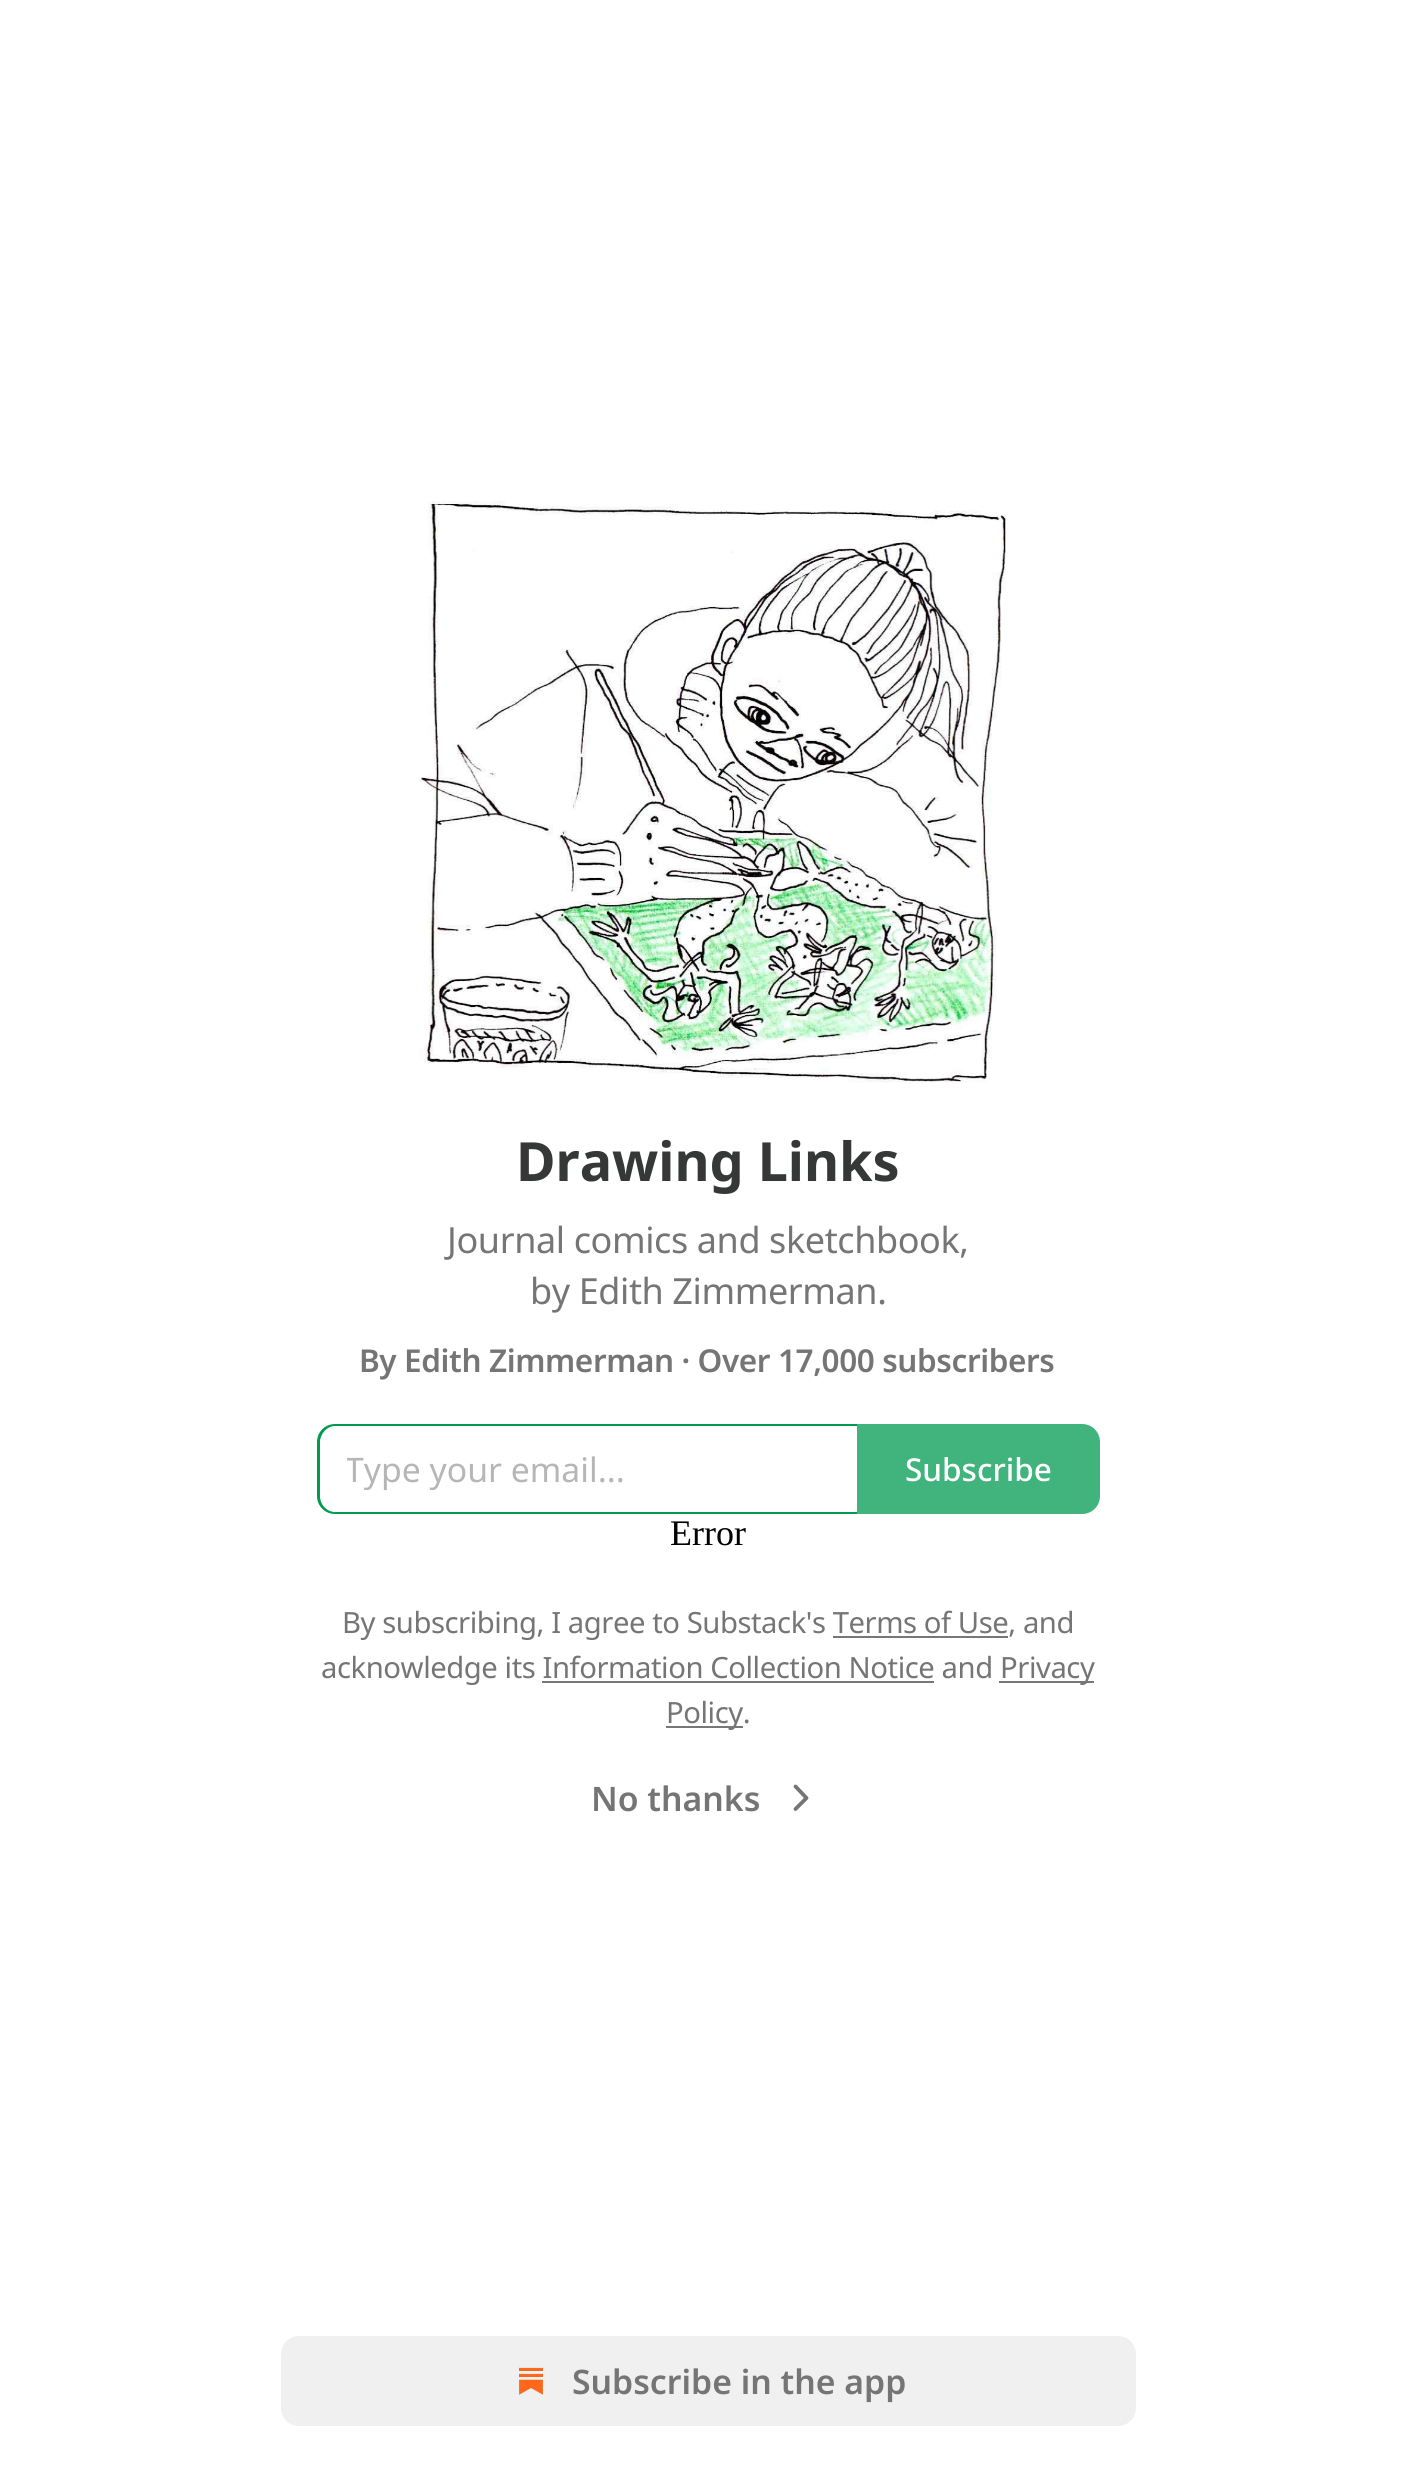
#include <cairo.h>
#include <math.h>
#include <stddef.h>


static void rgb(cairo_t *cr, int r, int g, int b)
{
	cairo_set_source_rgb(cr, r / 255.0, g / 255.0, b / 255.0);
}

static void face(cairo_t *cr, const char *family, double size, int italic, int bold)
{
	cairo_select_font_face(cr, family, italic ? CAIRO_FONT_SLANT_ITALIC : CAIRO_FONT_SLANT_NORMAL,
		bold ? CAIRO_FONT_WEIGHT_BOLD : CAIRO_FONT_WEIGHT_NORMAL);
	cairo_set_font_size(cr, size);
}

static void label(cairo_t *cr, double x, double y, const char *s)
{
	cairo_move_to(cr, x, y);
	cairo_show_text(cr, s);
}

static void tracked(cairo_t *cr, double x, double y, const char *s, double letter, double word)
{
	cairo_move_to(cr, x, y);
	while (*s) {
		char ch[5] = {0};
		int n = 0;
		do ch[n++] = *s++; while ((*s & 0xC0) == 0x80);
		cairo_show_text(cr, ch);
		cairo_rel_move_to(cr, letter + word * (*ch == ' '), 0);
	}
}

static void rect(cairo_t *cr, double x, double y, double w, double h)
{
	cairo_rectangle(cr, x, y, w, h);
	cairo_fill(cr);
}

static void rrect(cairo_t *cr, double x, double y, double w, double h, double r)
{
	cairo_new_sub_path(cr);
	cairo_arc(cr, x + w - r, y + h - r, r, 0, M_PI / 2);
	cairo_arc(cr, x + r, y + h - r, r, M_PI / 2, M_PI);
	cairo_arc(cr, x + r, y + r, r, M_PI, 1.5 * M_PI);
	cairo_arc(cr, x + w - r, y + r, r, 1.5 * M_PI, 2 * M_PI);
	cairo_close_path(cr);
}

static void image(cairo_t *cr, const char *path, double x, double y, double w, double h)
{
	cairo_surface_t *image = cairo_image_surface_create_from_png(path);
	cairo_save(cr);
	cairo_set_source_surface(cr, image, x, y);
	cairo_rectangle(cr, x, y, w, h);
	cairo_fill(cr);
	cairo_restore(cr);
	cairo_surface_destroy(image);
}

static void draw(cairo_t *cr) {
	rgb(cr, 255, 255, 255);
	cairo_paint(cr);
	image(cr, "image0.png", 419, 501, 587, 583);
	face(cr, "Noto Sans", 54, 0, 1);
	rgb(cr, 54, 55, 55);
	label(cr, 516, 1181, "Drawing Links");
	face(cr, "Noto Sans", 36, 0, 0);
	rgb(cr, 117, 117, 117);
	tracked(cr, 447, 1253, "Journal comics and sketchbook,", -0.4, 0);
	tracked(cr, 530, 1304, "by Edith Zimmerman.", -0.4, 0);
	face(cr, "Noto Sans SemiBold", 31.5, 0, 0);
	tracked(cr, 359, 1372, "By Edith Zimmerman · Over 17,000 subscribers", -0.4, 0);
	rgb(cr, 0, 155, 80);
	cairo_set_fill_rule(cr, CAIRO_FILL_RULE_EVEN_ODD);
	cairo_new_path(cr);
	cairo_move_to(cr, 335, 1424);
	cairo_line_to(cr, 857, 1424);
	cairo_line_to(cr, 857, 1514);
	cairo_line_to(cr, 335, 1514);
	cairo_curve_to(cr, 325, 1514, 317, 1506, 317, 1496);
	cairo_line_to(cr, 317, 1442);
	cairo_curve_to(cr, 317, 1432, 325, 1424, 335, 1424);
	cairo_close_path(cr);
	cairo_move_to(cr, 335, 1426);
	cairo_line_to(cr, 857, 1426);
	cairo_line_to(cr, 857, 1512);
	cairo_line_to(cr, 335, 1512);
	cairo_curve_to(cr, 327, 1512, 320, 1505, 320, 1496);
	cairo_line_to(cr, 320, 1442);
	cairo_curve_to(cr, 320, 1434, 327, 1426, 335, 1426);
	cairo_close_path(cr);
	cairo_fill(cr);
	cairo_save(cr);
	cairo_set_fill_rule(cr, CAIRO_FILL_RULE_WINDING);
	cairo_rectangle(cr, 347, 1447, 483, 45);
	cairo_clip(cr);
	face(cr, "Noto Sans", 33.75, 0, 0);
	rgb(cr, 182, 182, 182);
	label(cr, 345, 1482, "Type your email...");
	cairo_restore(cr);
	rgb(cr, 64, 180, 124);
	cairo_new_path(cr);
	cairo_move_to(cr, 858, 1425);
	cairo_line_to(cr, 1082, 1425);
	cairo_curve_to(cr, 1091.5, 1425, 1099, 1432.5, 1099, 1442);
	cairo_line_to(cr, 1099, 1496);
	cairo_curve_to(cr, 1099, 1505.5, 1091.5, 1513, 1082, 1513);
	cairo_line_to(cr, 858, 1513);
	cairo_close_path(cr);
	cairo_fill_preserve(cr);
	cairo_stroke(cr);
	face(cr, "Noto Sans Medium", 31.5, 0, 0);
	rgb(cr, 255, 255, 255);
	label(cr, 905, 1481, "Subscribe");
	face(cr, "Liberation Serif", 36, 0, 0);
	rgb(cr, 0, 0, 0);
	label(cr, 670, 1545, "Error");
	face(cr, "Noto Sans", 29.25, 0, 0);
	rgb(cr, 117, 117, 117);
	tracked(cr, 342, 1633, "By subscribing, I agree to Substack's Terms of Use, and", -0.45, 0);
	rgb(cr, 119, 119, 119);
	rect(cr, 833, 1636, 175, 2);
	rgb(cr, 117, 117, 117);
	tracked(cr, 321, 1678, "acknowledge its Information Collection Notice and", -0.45, 0);
	rgb(cr, 119, 119, 119);
	rect(cr, 999, 1681, 95, 2);
	rgb(cr, 117, 117, 117);
	tracked(cr, 1000, 1678, "Privacy", -0.45, 0);
	rgb(cr, 119, 119, 119);
	rect(cr, 542, 1681, 392, 2);
	rect(cr, 666, 1726, 77, 2);
	rgb(cr, 117, 117, 117);
	tracked(cr, 666, 1723, "Policy.", -0.45, 0);
	face(cr, "Noto Sans SemiBold", 33.75, 0, 0);
	label(cr, 591, 1811, "No thanks");
	cairo_new_path(cr);
	cairo_move_to(cr, 795.5, 1809);
	cairo_line_to(cr, 806.5, 1798);
	cairo_line_to(cr, 795.5, 1786.5);
	cairo_set_line_width(cr, 3.8);
	cairo_set_line_cap(cr, CAIRO_LINE_CAP_ROUND);
	cairo_set_line_join(cr, CAIRO_LINE_JOIN_ROUND);
	cairo_stroke(cr);
	rgb(cr, 240, 240, 240);
	rrect(cr, 281, 2336, 855, 90, 18);
	cairo_fill(cr);
	image(cr, "image1.png", 519, 2367, 24, 28);
	rgb(cr, 117, 117, 117);
	label(cr, 572, 2394, "Subscribe in the app");
}

int main(void) {
	cairo_surface_t *surface = cairo_image_surface_create(CAIRO_FORMAT_RGB24, 1415, 2479);
	cairo_t *cr = cairo_create(surface);
	cairo_font_options_t *options = cairo_font_options_create();
	cairo_font_options_set_hint_metrics(options, CAIRO_HINT_METRICS_OFF);
	cairo_font_options_set_hint_style(options, CAIRO_HINT_STYLE_NONE);
	cairo_set_font_options(cr, options);
	cairo_set_miter_limit(cr, 4);
	draw(cr);
	cairo_surface_write_to_png(surface, "render.png");
	cairo_font_options_destroy(options);
	cairo_destroy(cr);
	cairo_surface_destroy(surface);
	return 0;
}
